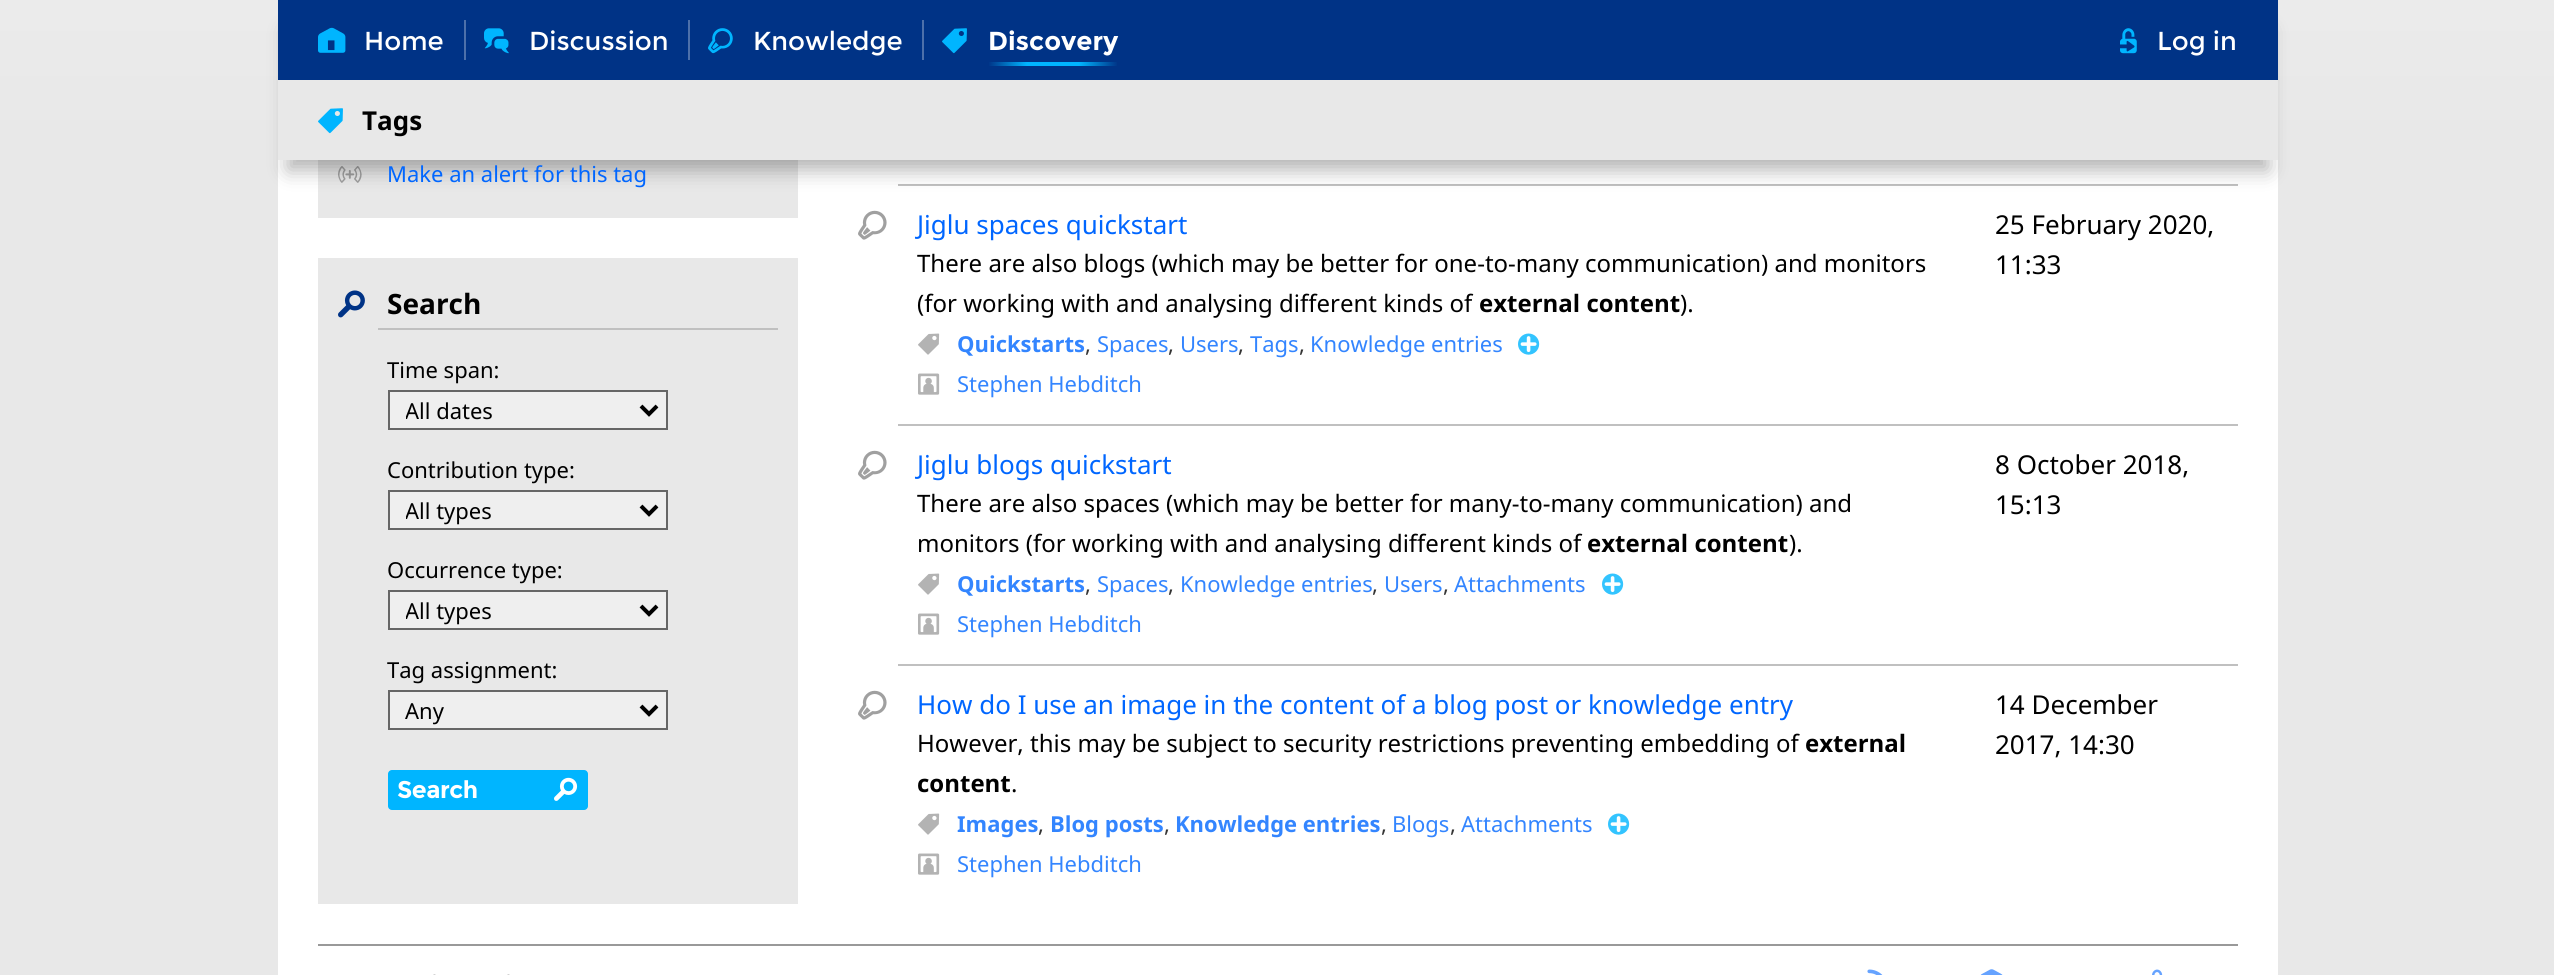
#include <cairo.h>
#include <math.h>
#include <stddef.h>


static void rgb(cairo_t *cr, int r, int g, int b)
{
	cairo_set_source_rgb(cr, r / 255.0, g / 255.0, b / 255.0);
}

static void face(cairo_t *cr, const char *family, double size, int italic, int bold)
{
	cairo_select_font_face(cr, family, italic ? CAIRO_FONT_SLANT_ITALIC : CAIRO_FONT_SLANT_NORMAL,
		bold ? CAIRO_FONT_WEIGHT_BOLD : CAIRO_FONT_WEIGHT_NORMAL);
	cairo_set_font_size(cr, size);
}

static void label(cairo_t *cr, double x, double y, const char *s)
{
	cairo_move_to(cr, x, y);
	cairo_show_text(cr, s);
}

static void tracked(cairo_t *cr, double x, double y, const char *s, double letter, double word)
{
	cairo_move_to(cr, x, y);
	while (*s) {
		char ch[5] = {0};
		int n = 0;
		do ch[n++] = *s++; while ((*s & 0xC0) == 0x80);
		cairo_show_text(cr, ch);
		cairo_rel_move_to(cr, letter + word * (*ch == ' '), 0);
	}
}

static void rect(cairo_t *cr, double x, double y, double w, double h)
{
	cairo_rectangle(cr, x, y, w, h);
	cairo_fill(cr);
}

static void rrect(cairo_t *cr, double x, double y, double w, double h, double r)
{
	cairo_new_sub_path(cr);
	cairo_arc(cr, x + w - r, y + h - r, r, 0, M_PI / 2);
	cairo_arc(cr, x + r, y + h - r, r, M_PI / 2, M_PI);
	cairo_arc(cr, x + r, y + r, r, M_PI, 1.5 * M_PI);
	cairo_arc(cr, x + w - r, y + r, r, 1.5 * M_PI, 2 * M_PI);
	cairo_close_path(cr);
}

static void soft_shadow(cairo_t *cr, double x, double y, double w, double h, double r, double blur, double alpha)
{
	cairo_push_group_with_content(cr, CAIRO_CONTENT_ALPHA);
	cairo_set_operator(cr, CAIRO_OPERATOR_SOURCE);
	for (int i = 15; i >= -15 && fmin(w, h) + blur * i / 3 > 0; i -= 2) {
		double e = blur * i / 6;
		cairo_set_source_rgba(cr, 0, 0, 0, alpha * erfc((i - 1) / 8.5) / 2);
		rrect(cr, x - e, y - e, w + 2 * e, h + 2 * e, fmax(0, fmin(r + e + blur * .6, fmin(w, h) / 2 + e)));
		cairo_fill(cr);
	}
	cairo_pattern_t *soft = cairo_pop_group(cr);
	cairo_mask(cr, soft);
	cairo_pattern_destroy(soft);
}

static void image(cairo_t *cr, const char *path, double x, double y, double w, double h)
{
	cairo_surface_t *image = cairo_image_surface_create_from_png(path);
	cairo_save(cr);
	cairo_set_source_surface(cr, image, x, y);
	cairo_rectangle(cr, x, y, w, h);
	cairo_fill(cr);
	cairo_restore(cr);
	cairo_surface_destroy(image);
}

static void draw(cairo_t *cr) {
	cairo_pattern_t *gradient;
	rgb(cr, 255, 255, 255);
	cairo_paint(cr);
	gradient = cairo_pattern_create_linear(1277, -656, 1277, 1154);
	cairo_pattern_add_color_stop_rgba(gradient, 0, 0.98, 0.98, 0.98, 1);
	cairo_pattern_add_color_stop_rgba(gradient, 0.44, 0.91, 0.91, 0.91, 1);
	cairo_set_source(cr, gradient);
	cairo_pattern_destroy(gradient);
	rect(cr, 0, 0, 2554, 975);
	rgb(cr, 255, 255, 255);
	rect(cr, 278, 160, 2000, 815);
	rgb(cr, 232, 232, 232);
	rect(cr, 318, 160, 480, 744);
	image(cr, "image11.png", 338, 166, 24, 17);
	rgb(cr, 192, 192, 192);
	rect(cr, 898, 184, 1340, 2);
	rgb(cr, 0, 0, 0);
	soft_shadow(cr, 288, 30, 1980, 140, 0, 10, 0.3);
	rgb(cr, 0, 51, 134);
	rect(cr, 278, 0, 2000, 80);
	image(cr, "image0.png", 318, 27, 28, 26);
	face(cr, "Montserrat", 26, 0, 0);
	rgb(cr, 255, 255, 255);
	label(cr, 364, 50, "Home");
	rgb(cr, 77, 112, 170);
	rect(cr, 464, 20, 2, 40);
	image(cr, "image1.png", 484, 28, 25, 26);
	rgb(cr, 255, 255, 255);
	label(cr, 529, 50, "Discussion");
	rgb(cr, 77, 112, 170);
	rect(cr, 688, 20, 2, 40);
	image(cr, "image2.png", 708, 28, 25, 26);
	rgb(cr, 255, 255, 255);
	label(cr, 753, 50, "Knowledge");
	rgb(cr, 77, 112, 170);
	rect(cr, 922, 20, 2, 40);
	image(cr, "image3.png", 942, 28, 25, 26);
	face(cr, "Montserrat", 26, 0, 1);
	rgb(cr, 255, 255, 255);
	label(cr, 988, 50, "Discovery");
	image(cr, "image4.png", 989, 62, 128, 4);
	image(cr, "image5.png", 2120, 28, 17, 26);
	face(cr, "Montserrat", 26, 0, 0);
	label(cr, 2157, 50, "Log in");
	rgb(cr, 232, 232, 232);
	rect(cr, 278, 80, 2000, 80);
	image(cr, "image6.png", 318, 108, 25, 26);
	face(cr, "Noto Sans", 26, 0, 1);
	rgb(cr, 0, 0, 0);
	label(cr, 362, 130, "Tags");
	rgb(cr, 153, 153, 153);
	rect(cr, 318, 944, 1920, 2);
	image(cr, "image7.png", 433, 974, 3, 1);
	image(cr, "image7.png", 507, 974, 3, 1);
	image(cr, "image8.png", 1867, 969, 16, 6);
	image(cr, "image9.png", 1980, 969, 23, 6);
	image(cr, "image10.png", 2152, 969, 11, 6);
	face(cr, "Noto Sans", 22, 0, 0);
	rgb(cr, 0, 102, 255);
	label(cr, 387, 182, "Make an alert for this tag");
	rgb(cr, 255, 255, 255);
	rect(cr, 318, 218, 480, 40);
	rgb(cr, 192, 192, 192);
	rect(cr, 378, 328, 400, 2);
	image(cr, "image12.png", 338, 290, 27, 28);
	face(cr, "Noto Sans", 28, 0, 1);
	rgb(cr, 0, 0, 0);
	label(cr, 387, 314, "Search");
	face(cr, "Noto Sans", 22, 0, 0);
	label(cr, 387, 378, "Time span:");
	rgb(cr, 239, 239, 239);
	cairo_rectangle(cr, 389, 391, 278, 38);
	cairo_fill_preserve(cr);
	rgb(cr, 102, 102, 102);
	cairo_stroke(cr);
	cairo_new_path(cr);
	cairo_move_to(cr, 641, 406);
	cairo_line_to(cr, 649, 414);
	cairo_line_to(cr, 657, 406);
	rgb(cr, 0, 0, 0);
	cairo_set_line_width(cr, 4);
	cairo_stroke(cr);
	cairo_save(cr);
	cairo_rectangle(cr, 406, 394, 220, 34);
	cairo_clip(cr);
	label(cr, 405, 419, "All dates");
	cairo_restore(cr);
	label(cr, 387, 478, "Contribution type:");
	rgb(cr, 239, 239, 239);
	cairo_rectangle(cr, 389, 491, 278, 38);
	cairo_fill_preserve(cr);
	rgb(cr, 102, 102, 102);
	cairo_set_line_width(cr, 2);
	cairo_stroke(cr);
	cairo_new_path(cr);
	cairo_move_to(cr, 641, 506);
	cairo_line_to(cr, 649, 514);
	cairo_line_to(cr, 657, 506);
	rgb(cr, 0, 0, 0);
	cairo_set_line_width(cr, 4);
	cairo_stroke(cr);
	cairo_save(cr);
	cairo_rectangle(cr, 406, 494, 220, 34);
	cairo_clip(cr);
	label(cr, 405, 519, "All types");
	cairo_restore(cr);
	label(cr, 387, 578, "Occurrence type:");
	rgb(cr, 239, 239, 239);
	cairo_rectangle(cr, 389, 591, 278, 38);
	cairo_fill_preserve(cr);
	rgb(cr, 102, 102, 102);
	cairo_set_line_width(cr, 2);
	cairo_stroke(cr);
	cairo_new_path(cr);
	cairo_move_to(cr, 641, 606);
	cairo_line_to(cr, 649, 614);
	cairo_line_to(cr, 657, 606);
	rgb(cr, 0, 0, 0);
	cairo_set_line_width(cr, 4);
	cairo_stroke(cr);
	cairo_save(cr);
	cairo_rectangle(cr, 406, 594, 220, 34);
	cairo_clip(cr);
	label(cr, 405, 619, "All types");
	cairo_restore(cr);
	label(cr, 387, 678, "Tag assignment:");
	rgb(cr, 239, 239, 239);
	cairo_rectangle(cr, 389, 691, 278, 38);
	cairo_fill_preserve(cr);
	rgb(cr, 102, 102, 102);
	cairo_set_line_width(cr, 2);
	cairo_stroke(cr);
	cairo_new_path(cr);
	cairo_move_to(cr, 641, 706);
	cairo_line_to(cr, 649, 714);
	cairo_line_to(cr, 657, 706);
	rgb(cr, 0, 0, 0);
	cairo_set_line_width(cr, 4);
	cairo_stroke(cr);
	label(cr, 405, 719, "Any");
	rgb(cr, 0, 181, 255);
	rrect(cr, 388, 770, 200, 40, 4);
	cairo_fill(cr);
	face(cr, "Montserrat", 24, 0, 1);
	rgb(cr, 255, 255, 255);
	tracked(cr, 397, 798, "Search", -0.5, 0);
	image(cr, "image13.png", 554, 777, 24, 24);
	image(cr, "image14.png", 858, 210, 29, 30);
	face(cr, "Noto Sans", 26, 0, 0);
	rgb(cr, 0, 102, 255);
	label(cr, 917, 234, "Jiglu spaces quickstart");
	face(cr, "Noto Sans", 24, 0, 0);
	rgb(cr, 0, 0, 0);
	label(cr, 917, 272, "There are also blogs (which may be better for one-to-many communication) and monitors");
	label(cr, 917, 312, "(for working with and analysing different kinds of");
	face(cr, "Noto Sans", 24, 0, 1);
	label(cr, 1479, 312, "external content");
	face(cr, "Noto Sans", 24, 0, 0);
	label(cr, 1680, 312, ").");
	image(cr, "image15.png", 918, 333, 22, 22);
	face(cr, "Noto Sans", 22, 0, 1);
	rgb(cr, 51, 133, 255);
	label(cr, 957, 352, "Quickstarts");
	face(cr, "Noto Sans", 22, 0, 0);
	rgb(cr, 51, 51, 51);
	label(cr, 1085, 352, ",");
	rgb(cr, 51, 133, 255);
	label(cr, 1097, 352, "Spaces");
	rgb(cr, 51, 51, 51);
	label(cr, 1168, 352, ",");
	rgb(cr, 51, 133, 255);
	label(cr, 1180, 352, "Users");
	rgb(cr, 51, 51, 51);
	label(cr, 1238, 352, ",");
	rgb(cr, 51, 133, 255);
	label(cr, 1250, 352, "Tags");
	rgb(cr, 51, 51, 51);
	label(cr, 1299, 352, ",");
	rgb(cr, 51, 133, 255);
	label(cr, 1310, 352, "Knowledge entries");
	image(cr, "image16.png", 1518, 333, 22, 22);
	image(cr, "image17.png", 918, 373, 22, 22);
	label(cr, 957, 392, "Stephen Hebditch");
	face(cr, "Noto Sans", 26, 0, 0);
	rgb(cr, 0, 0, 0);
	label(cr, 1995, 234, "25 February 2020,");
	label(cr, 1995, 274, "11:33");
	image(cr, "image14.png", 858, 450, 29, 30);
	rgb(cr, 192, 192, 192);
	rect(cr, 898, 424, 1340, 2);
	rgb(cr, 0, 102, 255);
	label(cr, 917, 474, "Jiglu blogs quickstart");
	face(cr, "Noto Sans", 24, 0, 0);
	rgb(cr, 0, 0, 0);
	label(cr, 917, 512, "There are also spaces (which may be better for many-to-many communication) and");
	label(cr, 917, 552, "monitors (for working with and analysing different kinds of");
	face(cr, "Noto Sans", 24, 0, 1);
	label(cr, 1587, 552, "external content");
	face(cr, "Noto Sans", 24, 0, 0);
	label(cr, 1789, 552, ").");
	image(cr, "image15.png", 918, 573, 22, 22);
	face(cr, "Noto Sans", 22, 0, 1);
	rgb(cr, 51, 133, 255);
	label(cr, 957, 592, "Quickstarts");
	face(cr, "Noto Sans", 22, 0, 0);
	rgb(cr, 51, 51, 51);
	label(cr, 1085, 592, ",");
	rgb(cr, 51, 133, 255);
	label(cr, 1097, 592, "Spaces");
	rgb(cr, 51, 51, 51);
	label(cr, 1168, 592, ",");
	rgb(cr, 51, 133, 255);
	label(cr, 1180, 592, "Knowledge entries");
	rgb(cr, 51, 51, 51);
	label(cr, 1372, 592, ",");
	rgb(cr, 51, 133, 255);
	label(cr, 1384, 592, "Users");
	rgb(cr, 51, 51, 51);
	label(cr, 1443, 592, ",");
	rgb(cr, 51, 133, 255);
	label(cr, 1454, 592, "Attachments");
	image(cr, "image16.png", 1602, 573, 22, 22);
	image(cr, "image17.png", 918, 613, 22, 22);
	label(cr, 957, 632, "Stephen Hebditch");
	face(cr, "Noto Sans", 26, 0, 0);
	rgb(cr, 0, 0, 0);
	label(cr, 1995, 474, "8 October 2018,");
	label(cr, 1995, 514, "15:13");
	image(cr, "image14.png", 858, 690, 29, 30);
	rgb(cr, 192, 192, 192);
	rect(cr, 898, 664, 1340, 2);
	rgb(cr, 0, 102, 255);
	label(cr, 917, 714, "How do I use an image in the content of a blog post or knowledge entry");
	face(cr, "Noto Sans", 24, 0, 0);
	rgb(cr, 0, 0, 0);
	label(cr, 917, 752, "However, this may be subject to security restrictions preventing embedding of");
	face(cr, "Noto Sans", 24, 0, 1);
	label(cr, 1805, 752, "external");
	label(cr, 917, 792, "content");
	face(cr, "Noto Sans", 24, 0, 0);
	label(cr, 1011, 792, ".");
	image(cr, "image15.png", 918, 813, 22, 22);
	face(cr, "Noto Sans", 22, 0, 1);
	rgb(cr, 51, 133, 255);
	label(cr, 957, 832, "Images");
	face(cr, "Noto Sans", 22, 0, 0);
	rgb(cr, 51, 51, 51);
	label(cr, 1038, 832, ",");
	face(cr, "Noto Sans", 22, 0, 1);
	rgb(cr, 51, 133, 255);
	label(cr, 1050, 832, "Blog posts");
	face(cr, "Noto Sans", 22, 0, 0);
	rgb(cr, 51, 51, 51);
	label(cr, 1164, 832, ",");
	face(cr, "Noto Sans", 22, 0, 1);
	rgb(cr, 51, 133, 255);
	label(cr, 1175, 832, "Knowledge entries");
	face(cr, "Noto Sans", 22, 0, 0);
	rgb(cr, 51, 51, 51);
	label(cr, 1381, 832, ",");
	rgb(cr, 51, 133, 255);
	label(cr, 1392, 832, "Blogs");
	rgb(cr, 51, 51, 51);
	label(cr, 1450, 832, ",");
	rgb(cr, 51, 133, 255);
	label(cr, 1461, 832, "Attachments");
	image(cr, "image16.png", 1608, 813, 22, 22);
	image(cr, "image17.png", 918, 853, 22, 22);
	label(cr, 957, 872, "Stephen Hebditch");
	face(cr, "Noto Sans", 26, 0, 0);
	rgb(cr, 0, 0, 0);
	label(cr, 1995, 714, "14 December");
	label(cr, 1995, 754, "2017, 14:30");
}

int main(void) {
	cairo_surface_t *surface = cairo_image_surface_create(CAIRO_FORMAT_RGB24, 2554, 975);
	cairo_t *cr = cairo_create(surface);
	cairo_font_options_t *options = cairo_font_options_create();
	cairo_font_options_set_hint_metrics(options, CAIRO_HINT_METRICS_OFF);
	cairo_font_options_set_hint_style(options, CAIRO_HINT_STYLE_NONE);
	cairo_set_font_options(cr, options);
	cairo_set_miter_limit(cr, 4);
	draw(cr);
	cairo_surface_write_to_png(surface, "render.png");
	cairo_font_options_destroy(options);
	cairo_destroy(cr);
	cairo_surface_destroy(surface);
	return 0;
}
